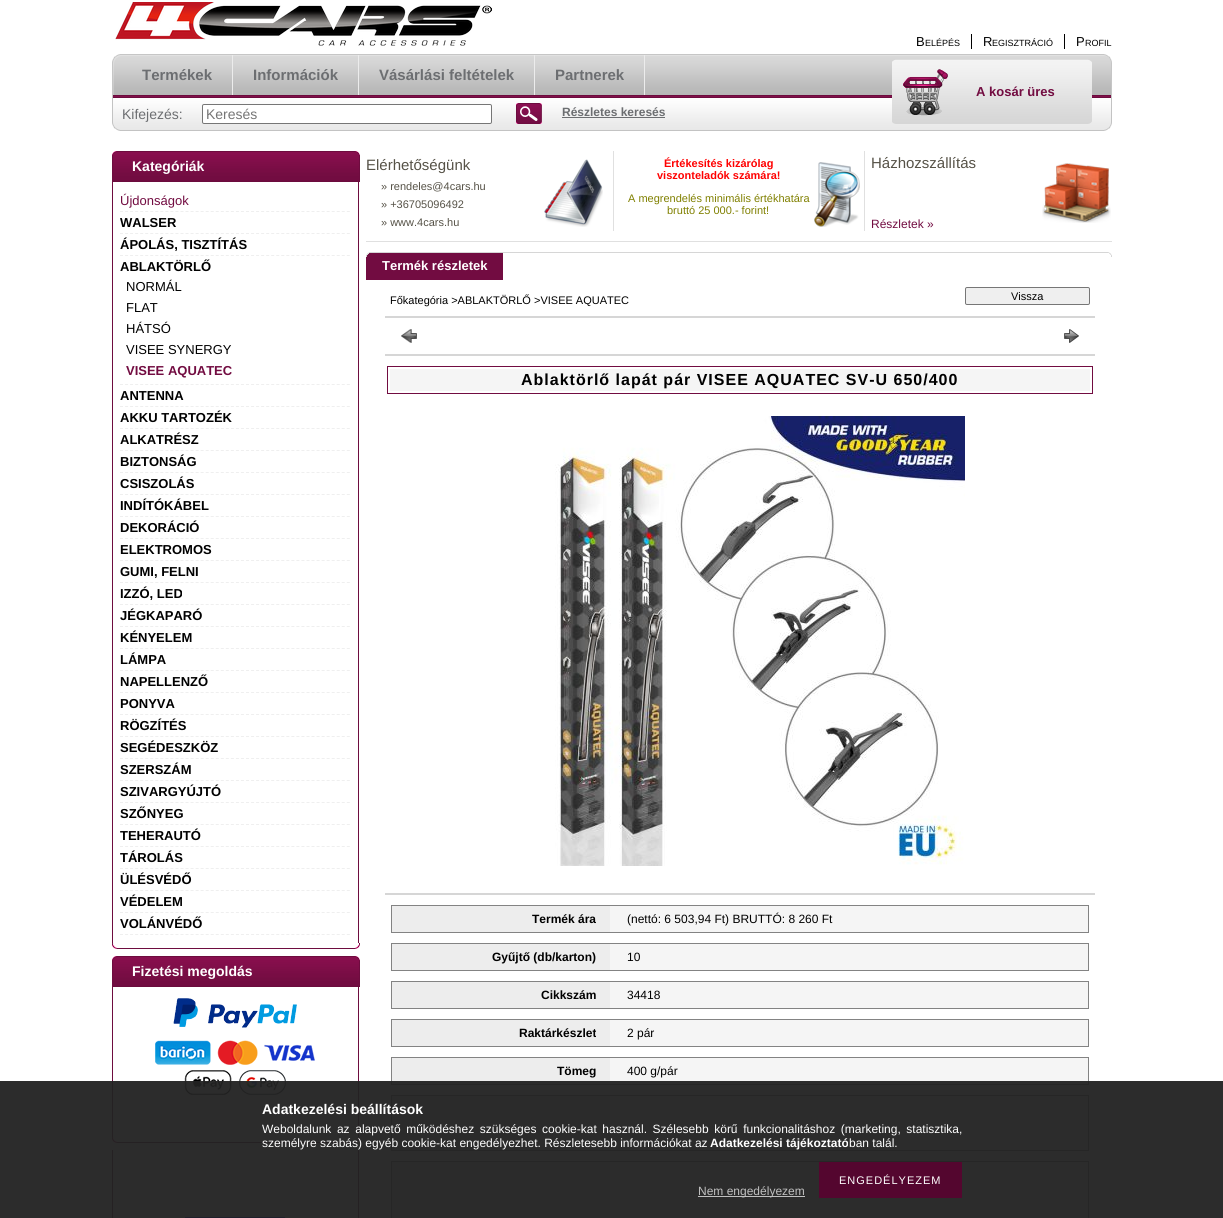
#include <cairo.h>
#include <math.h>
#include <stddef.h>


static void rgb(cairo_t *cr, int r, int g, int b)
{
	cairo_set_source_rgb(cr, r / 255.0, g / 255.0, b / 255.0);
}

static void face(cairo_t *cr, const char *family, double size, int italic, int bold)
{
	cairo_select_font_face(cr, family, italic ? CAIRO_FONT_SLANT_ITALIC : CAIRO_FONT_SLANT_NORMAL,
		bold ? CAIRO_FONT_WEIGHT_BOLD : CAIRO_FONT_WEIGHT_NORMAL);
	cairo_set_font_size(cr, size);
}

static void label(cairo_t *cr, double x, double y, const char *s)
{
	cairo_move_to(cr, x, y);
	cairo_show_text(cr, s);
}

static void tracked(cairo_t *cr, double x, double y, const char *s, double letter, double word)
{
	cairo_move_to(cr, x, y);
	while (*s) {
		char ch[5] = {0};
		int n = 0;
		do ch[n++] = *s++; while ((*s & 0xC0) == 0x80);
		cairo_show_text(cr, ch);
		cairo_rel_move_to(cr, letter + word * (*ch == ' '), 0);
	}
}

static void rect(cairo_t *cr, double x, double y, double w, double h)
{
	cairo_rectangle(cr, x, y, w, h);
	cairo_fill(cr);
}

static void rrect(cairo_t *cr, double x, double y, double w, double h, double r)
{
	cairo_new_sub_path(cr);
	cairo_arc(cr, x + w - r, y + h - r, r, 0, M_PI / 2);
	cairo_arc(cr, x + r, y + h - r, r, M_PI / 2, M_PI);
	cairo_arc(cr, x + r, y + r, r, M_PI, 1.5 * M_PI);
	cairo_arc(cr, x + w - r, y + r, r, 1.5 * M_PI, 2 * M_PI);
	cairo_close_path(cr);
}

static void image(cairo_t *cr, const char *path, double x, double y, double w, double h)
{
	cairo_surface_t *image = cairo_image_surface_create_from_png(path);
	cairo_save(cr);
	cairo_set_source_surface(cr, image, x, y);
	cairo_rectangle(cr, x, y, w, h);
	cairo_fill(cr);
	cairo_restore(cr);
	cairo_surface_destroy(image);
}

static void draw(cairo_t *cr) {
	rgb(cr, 255, 255, 255);
	cairo_paint(cr);
	image(cr, "image0.png", 115, 2, 377, 44);
	face(cr, "Liberation Sans", 13, 0, 0);
	rgb(cr, 0, 0, 0);
	label(cr, 916, 46, "B");
	face(cr, "Liberation Sans", 9, 0, 0);
	label(cr, 925, 46, "ELÉPÉS");
	rect(cr, 971, 34, 1, 15);
	face(cr, "Liberation Sans", 13, 0, 0);
	label(cr, 983, 46, "R");
	face(cr, "Liberation Sans", 9, 0, 0);
	label(cr, 992, 46, "EGISZTRÁCIÓ");
	rect(cr, 1064, 34, 1, 15);
	face(cr, "Liberation Sans", 13, 0, 0);
	label(cr, 1076, 46, "P");
	face(cr, "Liberation Sans", 9, 0, 0);
	label(cr, 1085, 46, "ROFIL");
	image(cr, "image1.png", 112, 54, 10, 77);
	image(cr, "image2.png", 122, 54, 980, 77);
	rgb(cr, 236, 236, 236);
	rect(cr, 232, 55, 1, 40);
	face(cr, "Liberation Sans", 15, 0, 1);
	rgb(cr, 108, 110, 113);
	label(cr, 142, 80, "Termékek");
	rgb(cr, 236, 236, 236);
	rect(cr, 358, 55, 1, 40);
	rgb(cr, 108, 110, 113);
	label(cr, 253, 80, "Információk");
	rgb(cr, 236, 236, 236);
	rect(cr, 534, 55, 1, 40);
	rgb(cr, 108, 110, 113);
	label(cr, 379, 80, "Vásárlási feltételek");
	rgb(cr, 236, 236, 236);
	rect(cr, 644, 55, 1, 40);
	rgb(cr, 108, 110, 113);
	label(cr, 555, 80, "Partnerek");
	face(cr, "Liberation Sans", 14, 0, 0);
	label(cr, 122, 119, "Kifejezés:");
	rgb(cr, 255, 255, 255);
	rrect(cr, 202.5, 104.5, 289, 19, 1.5);
	cairo_fill_preserve(cr);
	rgb(cr, 118, 118, 118);
	cairo_set_line_width(cr, 1);
	cairo_stroke(cr);
	rgb(cr, 117, 117, 117);
	label(cr, 206, 119, "Keresés");
	image(cr, "image3.png", 516, 103, 26, 21);
	face(cr, "Liberation Sans", 12, 0, 1);
	rgb(cr, 108, 110, 113);
	label(cr, 562, 116, "Részletes keresés");
	rect(cr, 562, 117, 103, 1);
	image(cr, "image4.png", 892, 59, 6, 65);
	image(cr, "image5.png", 898, 59, 188, 65);
	image(cr, "image6.png", 903, 69, 45, 47);
	face(cr, "Liberation Sans", 13, 0, 1);
	rgb(cr, 114, 12, 65);
	label(cr, 976, 96, "A kosár üres");
	image(cr, "image7.png", 1086, 59, 6, 65);
	image(cr, "image8.png", 1102, 54, 10, 77);
	image(cr, "image9.png", 112, 151, 248, 31);
	face(cr, "Liberation Sans", 14, 0, 1);
	rgb(cr, 255, 255, 255);
	label(cr, 132, 171, "Kategóriák");
	rgb(cr, 110, 12, 63);
	rect(cr, 358, 182, 1, 761);
	rect(cr, 112, 182, 1, 761);
	cairo_new_path(cr);
	cairo_move_to(cr, 120, 211.5);
	cairo_line_to(cr, 350, 211.5);
	rgb(cr, 239, 239, 239);
	cairo_set_dash(cr, (double[]){3, 2.04}, 2, 0);
	cairo_stroke(cr);
	face(cr, "Liberation Sans", 13, 0, 0);
	rgb(cr, 114, 12, 65);
	label(cr, 120, 205, "Újdonságok");
	cairo_new_path(cr);
	cairo_move_to(cr, 120, 233.5);
	cairo_line_to(cr, 350, 233.5);
	rgb(cr, 239, 239, 239);
	cairo_stroke(cr);
	face(cr, "Liberation Sans", 13, 0, 1);
	rgb(cr, 0, 0, 0);
	label(cr, 120, 227, "WALSER");
	cairo_new_path(cr);
	cairo_move_to(cr, 120, 255.5);
	cairo_line_to(cr, 350, 255.5);
	rgb(cr, 239, 239, 239);
	cairo_stroke(cr);
	rgb(cr, 0, 0, 0);
	label(cr, 120, 249, "ÁPOLÁS, TISZTÍTÁS");
	cairo_new_path(cr);
	cairo_move_to(cr, 120, 384.5);
	cairo_line_to(cr, 350, 384.5);
	rgb(cr, 239, 239, 239);
	cairo_stroke(cr);
	rgb(cr, 0, 0, 0);
	label(cr, 120, 271, "ABLAKTÖRLŐ");
	face(cr, "Liberation Sans", 13, 0, 0);
	label(cr, 126, 291, "NORMÁL");
	label(cr, 126, 312, "FLAT");
	label(cr, 126, 333, "HÁTSÓ");
	label(cr, 126, 354, "VISEE SYNERGY");
	face(cr, "Liberation Sans", 13, 0, 1);
	rgb(cr, 114, 12, 65);
	label(cr, 126, 375, "VISEE AQUATEC");
	cairo_new_path(cr);
	cairo_move_to(cr, 120, 406.5);
	cairo_line_to(cr, 350, 406.5);
	rgb(cr, 239, 239, 239);
	cairo_stroke(cr);
	rgb(cr, 0, 0, 0);
	label(cr, 120, 400, "ANTENNA");
	cairo_new_path(cr);
	cairo_move_to(cr, 120, 428.5);
	cairo_line_to(cr, 350, 428.5);
	rgb(cr, 239, 239, 239);
	cairo_stroke(cr);
	rgb(cr, 0, 0, 0);
	label(cr, 120, 422, "AKKU TARTOZÉK");
	cairo_new_path(cr);
	cairo_move_to(cr, 120, 450.5);
	cairo_line_to(cr, 350, 450.5);
	rgb(cr, 239, 239, 239);
	cairo_stroke(cr);
	rgb(cr, 0, 0, 0);
	label(cr, 120, 444, "ALKATRÉSZ");
	cairo_new_path(cr);
	cairo_move_to(cr, 120, 472.5);
	cairo_line_to(cr, 350, 472.5);
	rgb(cr, 239, 239, 239);
	cairo_stroke(cr);
	rgb(cr, 0, 0, 0);
	label(cr, 120, 466, "BIZTONSÁG");
	cairo_new_path(cr);
	cairo_move_to(cr, 120, 494.5);
	cairo_line_to(cr, 350, 494.5);
	rgb(cr, 239, 239, 239);
	cairo_stroke(cr);
	rgb(cr, 0, 0, 0);
	label(cr, 120, 488, "CSISZOLÁS");
	cairo_new_path(cr);
	cairo_move_to(cr, 120, 516.5);
	cairo_line_to(cr, 350, 516.5);
	rgb(cr, 239, 239, 239);
	cairo_stroke(cr);
	rgb(cr, 0, 0, 0);
	label(cr, 120, 510, "INDÍTÓKÁBEL");
	cairo_new_path(cr);
	cairo_move_to(cr, 120, 538.5);
	cairo_line_to(cr, 350, 538.5);
	rgb(cr, 239, 239, 239);
	cairo_stroke(cr);
	rgb(cr, 0, 0, 0);
	label(cr, 120, 532, "DEKORÁCIÓ");
	cairo_new_path(cr);
	cairo_move_to(cr, 120, 560.5);
	cairo_line_to(cr, 350, 560.5);
	rgb(cr, 239, 239, 239);
	cairo_stroke(cr);
	rgb(cr, 0, 0, 0);
	label(cr, 120, 554, "ELEKTROMOS");
	cairo_new_path(cr);
	cairo_move_to(cr, 120, 582.5);
	cairo_line_to(cr, 350, 582.5);
	rgb(cr, 239, 239, 239);
	cairo_stroke(cr);
	rgb(cr, 0, 0, 0);
	label(cr, 120, 576, "GUMI, FELNI");
	cairo_new_path(cr);
	cairo_move_to(cr, 120, 604.5);
	cairo_line_to(cr, 350, 604.5);
	rgb(cr, 239, 239, 239);
	cairo_stroke(cr);
	rgb(cr, 0, 0, 0);
	label(cr, 120, 598, "IZZÓ, LED");
	cairo_new_path(cr);
	cairo_move_to(cr, 120, 626.5);
	cairo_line_to(cr, 350, 626.5);
	rgb(cr, 239, 239, 239);
	cairo_stroke(cr);
	rgb(cr, 0, 0, 0);
	label(cr, 120, 620, "JÉGKAPARÓ");
	cairo_new_path(cr);
	cairo_move_to(cr, 120, 648.5);
	cairo_line_to(cr, 350, 648.5);
	rgb(cr, 239, 239, 239);
	cairo_stroke(cr);
	rgb(cr, 0, 0, 0);
	label(cr, 120, 642, "KÉNYELEM");
	cairo_new_path(cr);
	cairo_move_to(cr, 120, 670.5);
	cairo_line_to(cr, 350, 670.5);
	rgb(cr, 239, 239, 239);
	cairo_stroke(cr);
	rgb(cr, 0, 0, 0);
	label(cr, 120, 664, "LÁMPA");
	cairo_new_path(cr);
	cairo_move_to(cr, 120, 692.5);
	cairo_line_to(cr, 350, 692.5);
	rgb(cr, 239, 239, 239);
	cairo_stroke(cr);
	rgb(cr, 0, 0, 0);
	label(cr, 120, 686, "NAPELLENZŐ");
	cairo_new_path(cr);
	cairo_move_to(cr, 120, 714.5);
	cairo_line_to(cr, 350, 714.5);
	rgb(cr, 239, 239, 239);
	cairo_stroke(cr);
	rgb(cr, 0, 0, 0);
	label(cr, 120, 708, "PONYVA");
	cairo_new_path(cr);
	cairo_move_to(cr, 120, 736.5);
	cairo_line_to(cr, 350, 736.5);
	rgb(cr, 239, 239, 239);
	cairo_stroke(cr);
	rgb(cr, 0, 0, 0);
	label(cr, 120, 730, "RÖGZÍTÉS");
	cairo_new_path(cr);
	cairo_move_to(cr, 120, 758.5);
	cairo_line_to(cr, 350, 758.5);
	rgb(cr, 239, 239, 239);
	cairo_stroke(cr);
	rgb(cr, 0, 0, 0);
	label(cr, 120, 752, "SEGÉDESZKÖZ");
	cairo_new_path(cr);
	cairo_move_to(cr, 120, 780.5);
	cairo_line_to(cr, 350, 780.5);
	rgb(cr, 239, 239, 239);
	cairo_stroke(cr);
	rgb(cr, 0, 0, 0);
	label(cr, 120, 774, "SZERSZÁM");
	cairo_new_path(cr);
	cairo_move_to(cr, 120, 802.5);
	cairo_line_to(cr, 350, 802.5);
	rgb(cr, 239, 239, 239);
	cairo_stroke(cr);
	rgb(cr, 0, 0, 0);
	label(cr, 120, 796, "SZIVARGYÚJTÓ");
	cairo_new_path(cr);
	cairo_move_to(cr, 120, 824.5);
	cairo_line_to(cr, 350, 824.5);
	rgb(cr, 239, 239, 239);
	cairo_stroke(cr);
	rgb(cr, 0, 0, 0);
	label(cr, 120, 818, "SZŐNYEG");
	cairo_new_path(cr);
	cairo_move_to(cr, 120, 846.5);
	cairo_line_to(cr, 350, 846.5);
	rgb(cr, 239, 239, 239);
	cairo_stroke(cr);
	rgb(cr, 0, 0, 0);
	label(cr, 120, 840, "TEHERAUTÓ");
	cairo_new_path(cr);
	cairo_move_to(cr, 120, 868.5);
	cairo_line_to(cr, 350, 868.5);
	rgb(cr, 239, 239, 239);
	cairo_stroke(cr);
	rgb(cr, 0, 0, 0);
	label(cr, 120, 862, "TÁROLÁS");
	cairo_new_path(cr);
	cairo_move_to(cr, 120, 890.5);
	cairo_line_to(cr, 350, 890.5);
	rgb(cr, 239, 239, 239);
	cairo_stroke(cr);
	rgb(cr, 0, 0, 0);
	label(cr, 120, 884, "ÜLÉSVÉDŐ");
	cairo_new_path(cr);
	cairo_move_to(cr, 120, 912.5);
	cairo_line_to(cr, 350, 912.5);
	rgb(cr, 239, 239, 239);
	cairo_stroke(cr);
	rgb(cr, 0, 0, 0);
	label(cr, 120, 906, "VÉDELEM");
	cairo_new_path(cr);
	cairo_move_to(cr, 120, 934.5);
	cairo_line_to(cr, 350, 934.5);
	rgb(cr, 239, 239, 239);
	cairo_stroke(cr);
	rgb(cr, 0, 0, 0);
	label(cr, 120, 928, "VOLÁNVÉDŐ");
	image(cr, "image10.png", 112, 943, 248, 6);
	image(cr, "image9.png", 112, 956, 248, 31);
	face(cr, "Liberation Sans", 14, 0, 1);
	rgb(cr, 255, 255, 255);
	label(cr, 132, 976, "Fizetési megoldás");
	rgb(cr, 110, 12, 63);
	rect(cr, 358, 987, 1, 150);
	rect(cr, 112, 987, 1, 150);
	image(cr, "image11.png", 173, 998, 124, 30);
	image(cr, "image12.png", 155, 1040, 160, 55);
	image(cr, "image10.png", 112, 1137, 248, 6);
	rect(cr, 358, 1150, 1, 68);
	rect(cr, 112, 1150, 1, 68);
	rgb(cr, 0, 0, 255);
	rect(cr, 185, 1217, 100, 1);
	rgb(cr, 224, 224, 224);
	rect(cr, 366, 241, 746, 1);
	face(cr, "Liberation Sans", 15, 0, 0);
	rgb(cr, 86, 82, 71);
	label(cr, 366, 170, "Elérhetőségünk");
	face(cr, "Liberation Sans", 11, 0, 0);
	label(cr, 381, 190, "» rendeles@4cars.hu");
	label(cr, 381, 208, "» +36705096492");
	label(cr, 381, 226, "» www.4cars.hu");
	image(cr, "image13.png", 544, 159, 59, 68);
	rgb(cr, 224, 224, 224);
	rect(cr, 613, 151, 1, 80);
	face(cr, "Liberation Sans", 11, 0, 1);
	rgb(cr, 255, 0, 0);
	label(cr, 664, 167, "Értékesítés kizárólag");
	label(cr, 657, 179, "viszonteladók számára!");
	face(cr, "Liberation Sans", 11, 0, 0);
	rgb(cr, 128, 128, 0);
	label(cr, 628, 202, "A megrendelés minimális értékhatára");
	label(cr, 667, 214, "bruttó 25 000.- forint!");
	image(cr, "image14.png", 814, 162, 46, 65);
	rgb(cr, 224, 224, 224);
	rect(cr, 864, 151, 1, 80);
	face(cr, "Liberation Sans", 15, 0, 0);
	rgb(cr, 86, 82, 71);
	label(cr, 871, 168, "Házhozszállítás");
	face(cr, "Liberation Sans", 12, 0, 0);
	rgb(cr, 114, 12, 65);
	label(cr, 871, 228, "Részletek »");
	image(cr, "image15.png", 1042, 163, 69, 60);
	rect(cr, 366, 253, 137, 27);
	image(cr, "image16.png", 366, 252, 746, 5);
	face(cr, "Liberation Sans", 13, 0, 1);
	rgb(cr, 255, 255, 255);
	label(cr, 382, 270, "Termék részletek");
	face(cr, "Liberation Sans", 11, 0, 0);
	rgb(cr, 0, 0, 0);
	label(cr, 390, 304, "Főkategória >ABLAKTÖRLŐ >VISEE AQUATEC");
	rgb(cr, 239, 239, 239);
	rrect(cr, 965.5, 287.5, 124, 17, 1.5);
	cairo_fill_preserve(cr);
	rgb(cr, 118, 118, 118);
	cairo_set_dash(cr, NULL, 0, 0);
	cairo_stroke(cr);
	rgb(cr, 0, 0, 0);
	label(cr, 1011, 300, "Vissza");
	rgb(cr, 214, 214, 214);
	rect(cr, 385, 316, 710, 2);
	image(cr, "image17.png", 401, 329, 16, 14);
	image(cr, "image18.png", 1064, 329, 15, 14);
	rect(cr, 385, 354, 710, 2);
	cairo_rectangle(cr, 387.5, 366.5, 705, 27);
	rgb(cr, 114, 12, 65);
	cairo_stroke(cr);
	rgb(cr, 245, 245, 245);
	rect(cr, 390, 369, 700, 22);
	face(cr, "Liberation Sans", 16, 0, 1);
	rgb(cr, 0, 0, 0);
	tracked(cr, 521, 385, "Ablaktörlő lapát pár VISEE AQUATEC SV-U 650/400", 1, 0);
	image(cr, "image19.png", 555, 416, 410, 450);
	rgb(cr, 214, 214, 214);
	rect(cr, 385, 893, 710, 2);
	cairo_rectangle(cr, 391.5, 905.5, 697, 27);
	rgb(cr, 131, 131, 131);
	cairo_stroke(cr);
	rgb(cr, 237, 237, 237);
	rect(cr, 392, 906, 218, 26);
	face(cr, "Liberation Sans", 12, 0, 1);
	rgb(cr, 0, 0, 0);
	label(cr, 532, 923, "Termék ára");
	rgb(cr, 245, 245, 245);
	rect(cr, 610, 906, 478, 26);
	face(cr, "Liberation Sans", 12, 0, 0);
	rgb(cr, 0, 0, 0);
	label(cr, 627, 923, "(nettó: 6 503,94 Ft) BRUTTÓ: 8 260 Ft");
	cairo_rectangle(cr, 391.5, 943.5, 697, 27);
	rgb(cr, 131, 131, 131);
	cairo_stroke(cr);
	rgb(cr, 237, 237, 237);
	rect(cr, 392, 944, 218, 26);
	face(cr, "Liberation Sans", 12, 0, 1);
	rgb(cr, 0, 0, 0);
	label(cr, 492, 961, "Gyűjtő (db/karton)");
	rgb(cr, 245, 245, 245);
	rect(cr, 610, 944, 478, 26);
	face(cr, "Liberation Sans", 12, 0, 0);
	rgb(cr, 0, 0, 0);
	label(cr, 627, 961, "10");
	cairo_rectangle(cr, 391.5, 981.5, 697, 27);
	rgb(cr, 131, 131, 131);
	cairo_stroke(cr);
	rgb(cr, 237, 237, 237);
	rect(cr, 392, 982, 218, 26);
	face(cr, "Liberation Sans", 12, 0, 1);
	rgb(cr, 0, 0, 0);
	label(cr, 541, 999, "Cikkszám");
	rgb(cr, 245, 245, 245);
	rect(cr, 610, 982, 478, 26);
	face(cr, "Liberation Sans", 12, 0, 0);
	rgb(cr, 0, 0, 0);
	label(cr, 627, 999, "34418");
	cairo_rectangle(cr, 391.5, 1019.5, 697, 27);
	rgb(cr, 131, 131, 131);
	cairo_stroke(cr);
	rgb(cr, 237, 237, 237);
	rect(cr, 392, 1020, 218, 26);
	face(cr, "Liberation Sans", 12, 0, 1);
	rgb(cr, 0, 0, 0);
	label(cr, 519, 1037, "Raktárkészlet");
	rgb(cr, 245, 245, 245);
	rect(cr, 610, 1020, 478, 26);
	face(cr, "Liberation Sans", 12, 0, 0);
	rgb(cr, 0, 0, 0);
	label(cr, 627, 1037, "2 pár");
	cairo_rectangle(cr, 391.5, 1057.5, 697, 27);
	rgb(cr, 131, 131, 131);
	cairo_stroke(cr);
	rgb(cr, 237, 237, 237);
	rect(cr, 392, 1058, 218, 26);
	face(cr, "Liberation Sans", 12, 0, 1);
	rgb(cr, 0, 0, 0);
	label(cr, 557, 1075, "Tömeg");
	rgb(cr, 245, 245, 245);
	rect(cr, 610, 1058, 478, 26);
	face(cr, "Liberation Sans", 12, 0, 0);
	rgb(cr, 0, 0, 0);
	label(cr, 627, 1075, "400 g/pár");
	cairo_rectangle(cr, 391.5, 1095.5, 697, 55);
	rgb(cr, 131, 131, 131);
	cairo_stroke(cr);
	rgb(cr, 237, 237, 237);
	rect(cr, 392, 1096, 218, 54);
	rgb(cr, 245, 245, 245);
	rect(cr, 610, 1096, 478, 54);
	cairo_rectangle(cr, 391.5, 1161.5, 697, 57);
	rgb(cr, 131, 131, 131);
	cairo_stroke(cr);
	rgb(cr, 237, 237, 237);
	rect(cr, 392, 1162, 218, 56);
	rgb(cr, 245, 245, 245);
	rect(cr, 610, 1162, 478, 56);
	cairo_set_source_rgba(cr, 0.133, 0.133, 0.133, 0.95);
	rect(cr, 0, 1081, 1223, 137);
	face(cr, "Liberation Sans", 14, 0, 1);
	rgb(cr, 255, 255, 255);
	label(cr, 262, 1114, "Adatkezelési beállítások");
	face(cr, "Liberation Sans", 12, 0, 0);
	tracked(cr, 262, 1133, "Weboldalunk az alapvető működéshez szükséges cookie-kat használ. Szélesebb körű funkcionalitáshoz (marketing, statisztika,", 0, 2.25);
	label(cr, 262, 1147, "személyre szabás) egyéb cookie-kat engedélyezhet. Részletesebb információkat az");
	face(cr, "Liberation Sans", 12, 0, 1);
	label(cr, 710, 1147, "Adatkezelési tájékoztató");
	face(cr, "Liberation Sans", 12, 0, 0);
	label(cr, 849, 1147, "ban talál.");
	rgb(cr, 84, 6, 47);
	rect(cr, 819, 1162, 143, 36);
	face(cr, "Liberation Sans", 11, 0, 0);
	rgb(cr, 255, 255, 255);
	tracked(cr, 839, 1184, "ENGEDÉLYEZEM", 1, 0);
	rgb(cr, 192, 192, 192);
	rect(cr, 698, 1196, 107, 1);
	face(cr, "Liberation Sans", 12, 0, 0);
	label(cr, 698, 1195, "Nem engedélyezem");
}

int main(void) {
	cairo_surface_t *surface = cairo_image_surface_create(CAIRO_FORMAT_RGB24, 1223, 1218);
	cairo_t *cr = cairo_create(surface);
	cairo_font_options_t *options = cairo_font_options_create();
	cairo_font_options_set_hint_metrics(options, CAIRO_HINT_METRICS_OFF);
	cairo_font_options_set_hint_style(options, CAIRO_HINT_STYLE_NONE);
	cairo_set_font_options(cr, options);
	cairo_set_miter_limit(cr, 4);
	draw(cr);
	cairo_surface_write_to_png(surface, "render.png");
	cairo_font_options_destroy(options);
	cairo_destroy(cr);
	cairo_surface_destroy(surface);
	return 0;
}
